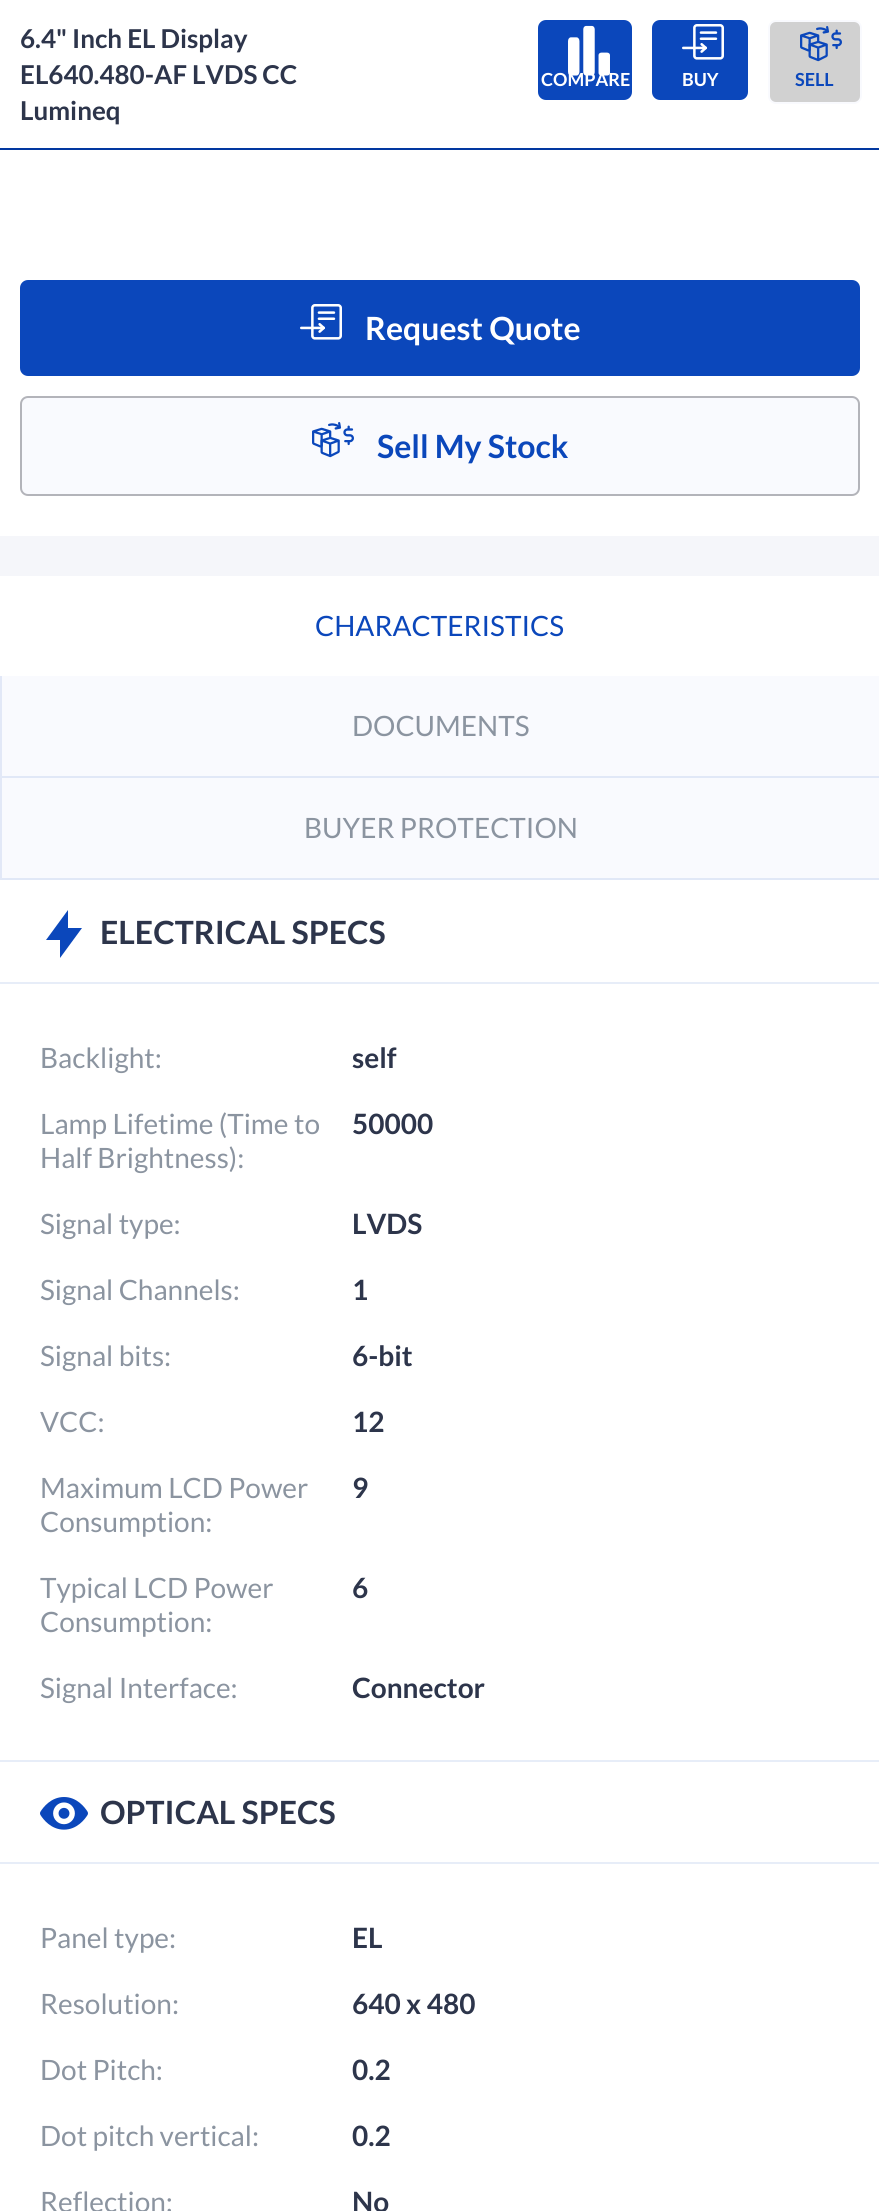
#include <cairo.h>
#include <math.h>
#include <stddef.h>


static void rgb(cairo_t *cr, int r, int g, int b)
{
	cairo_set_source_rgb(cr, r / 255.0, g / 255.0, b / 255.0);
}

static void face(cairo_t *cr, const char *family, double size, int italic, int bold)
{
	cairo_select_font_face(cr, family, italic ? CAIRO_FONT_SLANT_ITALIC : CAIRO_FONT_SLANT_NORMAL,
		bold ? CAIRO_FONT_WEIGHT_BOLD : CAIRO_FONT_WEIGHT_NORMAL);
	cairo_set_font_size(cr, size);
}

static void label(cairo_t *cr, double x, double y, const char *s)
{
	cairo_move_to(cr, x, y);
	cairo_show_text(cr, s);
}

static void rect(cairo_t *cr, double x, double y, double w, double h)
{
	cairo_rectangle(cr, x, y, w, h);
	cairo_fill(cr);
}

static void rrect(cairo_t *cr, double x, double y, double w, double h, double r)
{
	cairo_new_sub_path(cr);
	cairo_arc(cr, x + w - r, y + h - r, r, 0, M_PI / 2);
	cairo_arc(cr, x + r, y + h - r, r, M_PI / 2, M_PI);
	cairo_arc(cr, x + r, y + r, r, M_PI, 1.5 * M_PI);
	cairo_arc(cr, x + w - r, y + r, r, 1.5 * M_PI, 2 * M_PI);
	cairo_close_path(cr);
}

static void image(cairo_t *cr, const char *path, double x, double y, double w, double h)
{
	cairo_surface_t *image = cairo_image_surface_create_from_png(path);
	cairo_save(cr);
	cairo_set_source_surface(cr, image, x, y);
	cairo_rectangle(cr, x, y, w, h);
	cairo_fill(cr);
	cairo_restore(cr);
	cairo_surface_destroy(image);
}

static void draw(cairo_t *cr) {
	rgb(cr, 245, 246, 250);
	cairo_paint(cr);
	rgb(cr, 255, 255, 255);
	rect(cr, 0, 0, 879, 148);
	rgb(cr, 2, 56, 160);
	rect(cr, 0, 148, 879, 2);
	face(cr, "Lato", 26, 0, 1);
	rgb(cr, 45, 53, 75);
	label(cr, 20, 48, "6.4\" Inch EL Display");
	label(cr, 20, 84, "EL640.480-AF LVDS CC");
	label(cr, 20, 120, "Lumineq");
	rgb(cr, 11, 71, 187);
	rrect(cr, 538, 20, 94, 80, 8);
	cairo_fill(cr);
	image(cr, "image0.png", 568, 25, 42, 51);
	face(cr, "Lato", 18, 0, 1);
	rgb(cr, 255, 255, 255);
	label(cr, 541, 86, "COMPARE");
	rgb(cr, 11, 71, 187);
	rrect(cr, 652, 20, 96, 80, 8);
	cairo_fill(cr);
	image(cr, "image1.png", 682, 24, 42, 36);
	rgb(cr, 255, 255, 255);
	label(cr, 682, 86, "BUY");
	rgb(cr, 209, 209, 209);
	rrect(cr, 769, 21, 92, 82, 7);
	cairo_fill_preserve(cr);
	rgb(cr, 249, 250, 254);
	cairo_stroke(cr);
	image(cr, "image2.png", 800, 26, 42, 36);
	rgb(cr, 11, 71, 187);
	label(cr, 795, 86, "SELL");
	rgb(cr, 255, 255, 255);
	rect(cr, 0, 150, 879, 386);
	rgb(cr, 11, 71, 187);
	rrect(cr, 20, 280, 840, 96, 8);
	cairo_fill(cr);
	image(cr, "image1.png", 300, 304, 42, 36);
	face(cr, "Lato", 32, 0, 1);
	rgb(cr, 255, 255, 255);
	label(cr, 365, 340, "Request Quote");
	rgb(cr, 249, 250, 254);
	rrect(cr, 21, 397, 838, 98, 7);
	cairo_fill_preserve(cr);
	rgb(cr, 179, 180, 186);
	cairo_stroke(cr);
	image(cr, "image3.png", 312, 422, 42, 36);
	rgb(cr, 11, 71, 187);
	label(cr, 377, 458, "Sell My Stock");
	rgb(cr, 255, 255, 255);
	rect(cr, 0, 576, 879, 100);
	face(cr, "Lato", 28, 0, 0);
	rgb(cr, 11, 71, 187);
	label(cr, 315, 636, "CHARACTERISTICS");
	rgb(cr, 249, 250, 254);
	rect(cr, 0, 676, 879, 204);
	rgb(cr, 225, 232, 247);
	cairo_new_path(cr);
	cairo_move_to(cr, 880, 778);
	cairo_line_to(cr, 0, 778);
	cairo_line_to(cr, 2, 776);
	cairo_line_to(cr, 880, 776);
	cairo_close_path(cr);
	cairo_fill(cr);
	cairo_set_source_rgba(cr, 0.043, 0.278, 0.733, 0.1);
	cairo_new_path(cr);
	cairo_move_to(cr, 0, 778);
	cairo_line_to(cr, 0, 676);
	cairo_line_to(cr, 2, 676);
	cairo_line_to(cr, 2, 776);
	cairo_close_path(cr);
	cairo_fill(cr);
	rgb(cr, 139, 148, 160);
	label(cr, 352, 736, "DOCUMENTS");
	rgb(cr, 225, 232, 247);
	cairo_new_path(cr);
	cairo_move_to(cr, 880, 880);
	cairo_line_to(cr, 0, 880);
	cairo_line_to(cr, 2, 878);
	cairo_line_to(cr, 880, 878);
	cairo_close_path(cr);
	cairo_fill(cr);
	cairo_set_source_rgba(cr, 0.043, 0.278, 0.733, 0.1);
	cairo_new_path(cr);
	cairo_move_to(cr, 0, 880);
	cairo_line_to(cr, 0, 778);
	cairo_line_to(cr, 2, 778);
	cairo_line_to(cr, 2, 878);
	cairo_close_path(cr);
	cairo_fill(cr);
	rgb(cr, 139, 148, 160);
	label(cr, 304, 838, "BUYER PROTECTION");
	rgb(cr, 255, 255, 255);
	rect(cr, 0, 880, 879, 1331);
	rgb(cr, 231, 237, 248);
	rect(cr, 0, 982, 879, 2);
	rgb(cr, 11, 71, 187);
	cairo_new_path(cr);
	cairo_move_to(cr, 46, 940);
	cairo_line_to(cr, 68, 910);
	cairo_line_to(cr, 68, 928);
	cairo_line_to(cr, 82, 928);
	cairo_line_to(cr, 60, 958);
	cairo_line_to(cr, 60, 940);
	cairo_close_path(cr);
	cairo_fill(cr);
	face(cr, "Lato", 32, 0, 1);
	rgb(cr, 45, 53, 75);
	label(cr, 100, 944, "ELECTRICAL SPECS");
	face(cr, "Lato", 28, 0, 0);
	rgb(cr, 139, 148, 160);
	label(cr, 40, 1068, "Backlight:");
	face(cr, "Lato", 28, 0, 1);
	rgb(cr, 45, 53, 75);
	label(cr, 352, 1068, "self");
	face(cr, "Lato", 28, 0, 0);
	rgb(cr, 139, 148, 160);
	label(cr, 40, 1134, "Lamp Lifetime (Time to");
	label(cr, 40, 1168, "Half Brightness):");
	face(cr, "Lato", 28, 0, 1);
	rgb(cr, 45, 53, 75);
	label(cr, 352, 1134, "50000");
	face(cr, "Lato", 28, 0, 0);
	rgb(cr, 139, 148, 160);
	label(cr, 40, 1234, "Signal type:");
	face(cr, "Lato", 28, 0, 1);
	rgb(cr, 45, 53, 75);
	label(cr, 352, 1234, "LVDS");
	face(cr, "Lato", 28, 0, 0);
	rgb(cr, 139, 148, 160);
	label(cr, 40, 1300, "Signal Channels:");
	face(cr, "Lato", 28, 0, 1);
	rgb(cr, 45, 53, 75);
	label(cr, 352, 1300, "1");
	face(cr, "Lato", 28, 0, 0);
	rgb(cr, 139, 148, 160);
	label(cr, 40, 1366, "Signal bits:");
	face(cr, "Lato", 28, 0, 1);
	rgb(cr, 45, 53, 75);
	label(cr, 352, 1366, "6-bit");
	face(cr, "Lato", 28, 0, 0);
	rgb(cr, 139, 148, 160);
	label(cr, 40, 1432, "VCC:");
	face(cr, "Lato", 28, 0, 1);
	rgb(cr, 45, 53, 75);
	label(cr, 352, 1432, "12");
	face(cr, "Lato", 28, 0, 0);
	rgb(cr, 139, 148, 160);
	label(cr, 40, 1498, "Maximum LCD Power");
	label(cr, 40, 1532, "Consumption:");
	face(cr, "Lato", 28, 0, 1);
	rgb(cr, 45, 53, 75);
	label(cr, 352, 1498, "9");
	face(cr, "Lato", 28, 0, 0);
	rgb(cr, 139, 148, 160);
	label(cr, 40, 1598, "Typical LCD Power");
	label(cr, 40, 1632, "Consumption:");
	face(cr, "Lato", 28, 0, 1);
	rgb(cr, 45, 53, 75);
	label(cr, 352, 1598, "6");
	face(cr, "Lato", 28, 0, 0);
	rgb(cr, 139, 148, 160);
	label(cr, 40, 1698, "Signal Interface:");
	face(cr, "Lato", 28, 0, 1);
	rgb(cr, 45, 53, 75);
	label(cr, 352, 1698, "Connector");
	rgb(cr, 231, 237, 248);
	rect(cr, 0, 1760, 879, 2);
	rect(cr, 0, 1862, 879, 2);
	image(cr, "image4.png", 40, 1797, 48, 33);
	face(cr, "Lato", 32, 0, 1);
	rgb(cr, 45, 53, 75);
	label(cr, 100, 1824, "OPTICAL SPECS");
	face(cr, "Lato", 28, 0, 0);
	rgb(cr, 139, 148, 160);
	label(cr, 40, 1948, "Panel type:");
	face(cr, "Lato", 28, 0, 1);
	rgb(cr, 45, 53, 75);
	label(cr, 352, 1948, "EL");
	face(cr, "Lato", 28, 0, 0);
	rgb(cr, 139, 148, 160);
	label(cr, 40, 2014, "Resolution:");
	face(cr, "Lato", 28, 0, 1);
	rgb(cr, 45, 53, 75);
	label(cr, 352, 2014, "640 x 480");
	face(cr, "Lato", 28, 0, 0);
	rgb(cr, 139, 148, 160);
	label(cr, 40, 2080, "Dot Pitch:");
	face(cr, "Lato", 28, 0, 1);
	rgb(cr, 45, 53, 75);
	label(cr, 352, 2080, "0.2");
	face(cr, "Lato", 28, 0, 0);
	rgb(cr, 139, 148, 160);
	label(cr, 40, 2146, "Dot pitch vertical:");
	face(cr, "Lato", 28, 0, 1);
	rgb(cr, 45, 53, 75);
	label(cr, 352, 2146, "0.2");
	face(cr, "Lato", 28, 0, 0);
	rgb(cr, 139, 148, 160);
	label(cr, 40, 2212, "Reflection:");
	face(cr, "Lato", 28, 0, 1);
	rgb(cr, 45, 53, 75);
	label(cr, 352, 2212, "No");
}

int main(void) {
	cairo_surface_t *surface = cairo_image_surface_create(CAIRO_FORMAT_RGB24, 879, 2211);
	cairo_t *cr = cairo_create(surface);
	cairo_font_options_t *options = cairo_font_options_create();
	cairo_font_options_set_hint_metrics(options, CAIRO_HINT_METRICS_OFF);
	cairo_font_options_set_hint_style(options, CAIRO_HINT_STYLE_NONE);
	cairo_set_font_options(cr, options);
	cairo_set_miter_limit(cr, 4);
	draw(cr);
	cairo_surface_write_to_png(surface, "render.png");
	cairo_font_options_destroy(options);
	cairo_destroy(cr);
	cairo_surface_destroy(surface);
	return 0;
}
